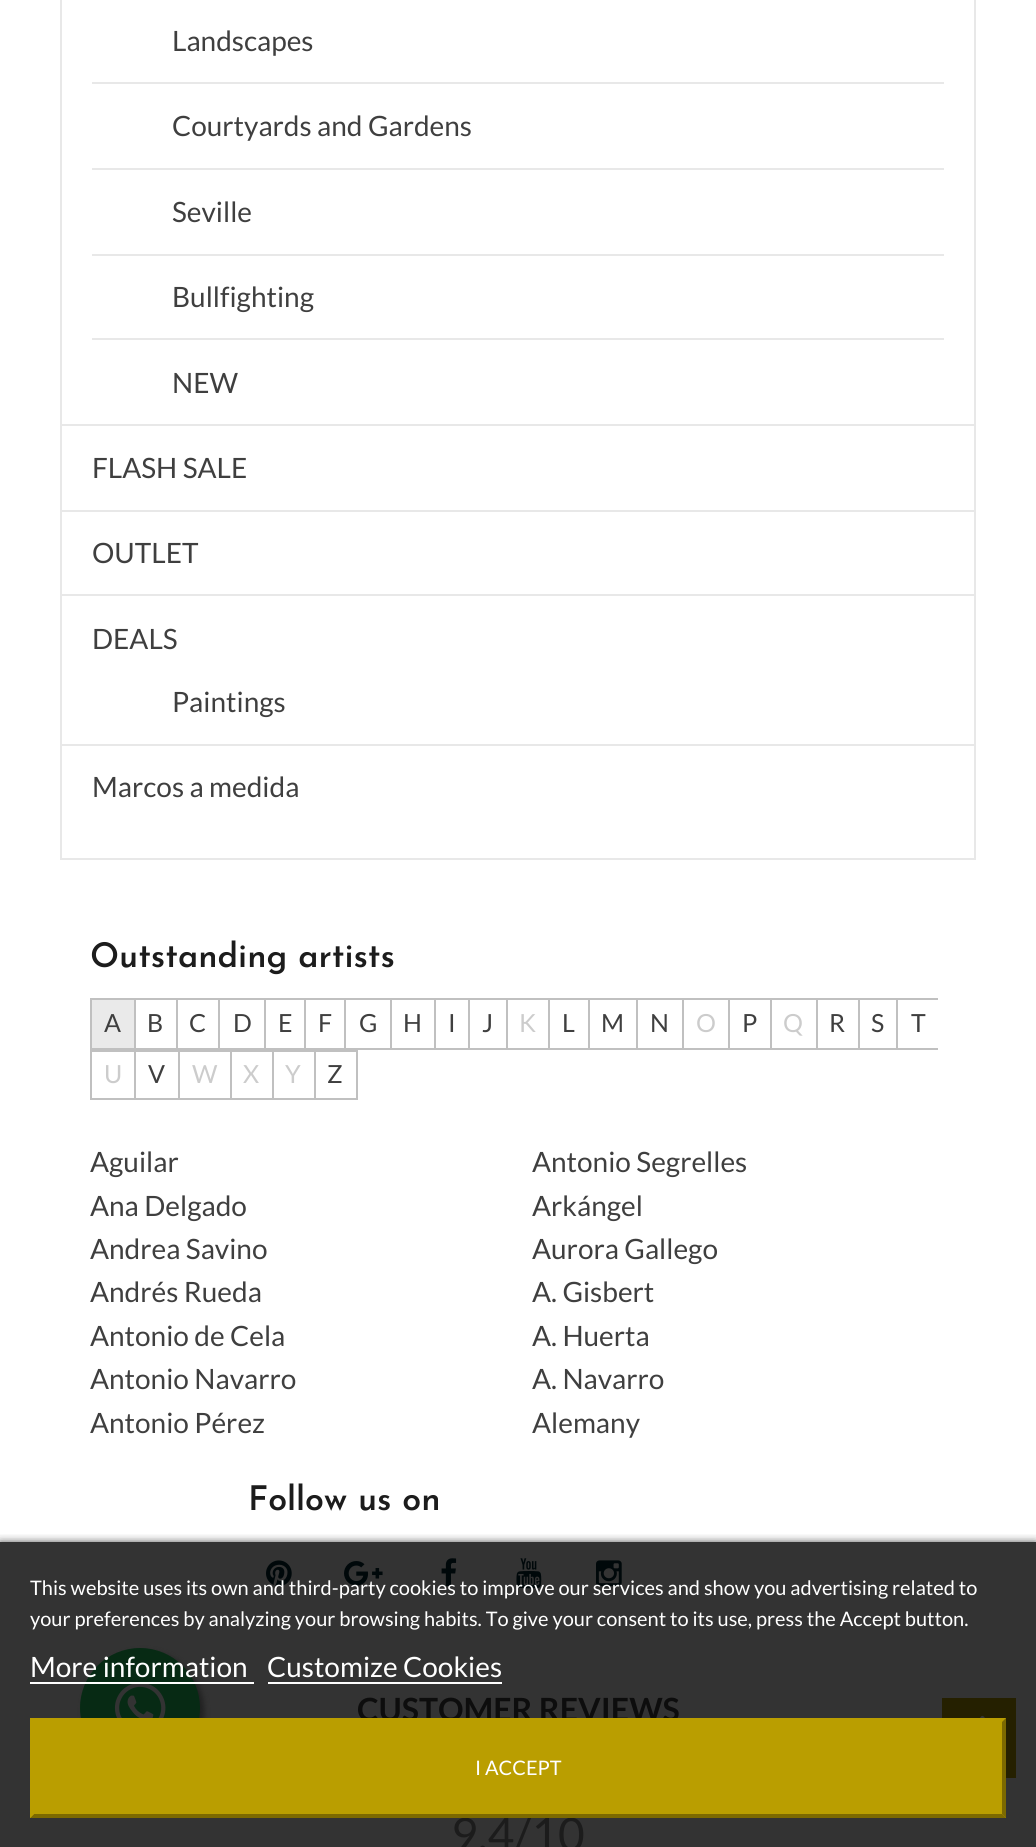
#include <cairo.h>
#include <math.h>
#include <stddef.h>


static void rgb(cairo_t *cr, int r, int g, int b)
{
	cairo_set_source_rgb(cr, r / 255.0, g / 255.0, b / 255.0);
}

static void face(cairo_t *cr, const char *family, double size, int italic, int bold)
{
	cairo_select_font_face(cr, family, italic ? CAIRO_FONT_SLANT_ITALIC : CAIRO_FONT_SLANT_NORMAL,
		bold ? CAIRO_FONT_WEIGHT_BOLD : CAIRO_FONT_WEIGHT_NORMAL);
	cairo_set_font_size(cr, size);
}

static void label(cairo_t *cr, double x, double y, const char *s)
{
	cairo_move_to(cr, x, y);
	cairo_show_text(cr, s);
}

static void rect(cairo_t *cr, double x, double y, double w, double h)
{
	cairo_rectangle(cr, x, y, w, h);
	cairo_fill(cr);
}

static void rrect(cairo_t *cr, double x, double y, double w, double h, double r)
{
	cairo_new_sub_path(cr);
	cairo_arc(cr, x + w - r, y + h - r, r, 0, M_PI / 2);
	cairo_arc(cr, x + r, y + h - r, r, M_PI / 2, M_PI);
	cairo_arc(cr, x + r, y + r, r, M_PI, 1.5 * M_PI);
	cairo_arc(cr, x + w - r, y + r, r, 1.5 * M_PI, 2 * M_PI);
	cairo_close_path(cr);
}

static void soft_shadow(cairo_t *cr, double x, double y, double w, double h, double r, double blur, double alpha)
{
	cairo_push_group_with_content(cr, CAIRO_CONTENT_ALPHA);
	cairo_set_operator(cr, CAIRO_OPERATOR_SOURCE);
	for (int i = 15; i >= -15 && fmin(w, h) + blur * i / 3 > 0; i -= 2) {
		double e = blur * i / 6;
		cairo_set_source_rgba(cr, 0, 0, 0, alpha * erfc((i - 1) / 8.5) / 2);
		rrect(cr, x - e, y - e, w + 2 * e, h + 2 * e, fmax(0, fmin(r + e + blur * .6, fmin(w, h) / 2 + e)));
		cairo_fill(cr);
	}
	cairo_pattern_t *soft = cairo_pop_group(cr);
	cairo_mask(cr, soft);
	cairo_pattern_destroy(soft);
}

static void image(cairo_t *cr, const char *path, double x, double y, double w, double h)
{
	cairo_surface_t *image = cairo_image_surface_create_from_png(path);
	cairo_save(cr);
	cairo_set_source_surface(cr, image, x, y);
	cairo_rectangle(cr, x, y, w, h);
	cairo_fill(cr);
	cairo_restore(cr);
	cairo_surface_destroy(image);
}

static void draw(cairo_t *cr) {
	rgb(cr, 255, 255, 255);
	cairo_paint(cr);
	rgb(cr, 51, 51, 51);
	rect(cr, 0, 1542, 1036, 305);
	cairo_rectangle(cr, 61, -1, 914, 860);
	rgb(cr, 232, 232, 232);
	cairo_stroke(cr);
	rect(cr, 62, 424, 912, 2);
	rect(cr, 92, 82, 852, 2);
	face(cr, "Lato", 28, 0, 0);
	rgb(cr, 63, 63, 63);
	label(cr, 172, 51, "Landscapes");
	rgb(cr, 232, 232, 232);
	rect(cr, 92, 168, 852, 2);
	rgb(cr, 63, 63, 63);
	label(cr, 172, 136, "Courtyards and Gardens");
	rgb(cr, 232, 232, 232);
	rect(cr, 92, 254, 852, 2);
	rgb(cr, 63, 63, 63);
	label(cr, 172, 222, "Seville");
	rgb(cr, 232, 232, 232);
	rect(cr, 92, 338, 852, 2);
	rgb(cr, 63, 63, 63);
	label(cr, 172, 307, "Bullfighting");
	label(cr, 172, 393, "NEW");
	rgb(cr, 232, 232, 232);
	rect(cr, 62, 510, 912, 2);
	rgb(cr, 63, 63, 63);
	label(cr, 92, 478, "FLASH SALE");
	rgb(cr, 232, 232, 232);
	rect(cr, 62, 594, 912, 2);
	rgb(cr, 63, 63, 63);
	label(cr, 92, 563, "OUTLET");
	rgb(cr, 232, 232, 232);
	rect(cr, 62, 744, 912, 2);
	rgb(cr, 63, 63, 63);
	label(cr, 92, 649, "DEALS");
	label(cr, 172, 712, "Paintings");
	label(cr, 92, 797, "Marcos a medida");
	face(cr, "Josefin Sans SemiBold", 34, 0, 0);
	rgb(cr, 28, 28, 28);
	label(cr, 90, 967, "Outstanding artists");
	rgb(cr, 234, 234, 234);
	rect(cr, 92, 1000, 42, 48);
	rgb(cr, 192, 192, 192);
	rect(cr, 90, 998, 848, 2);
	rect(cr, 90, 1048, 848, 2);
	rect(cr, 90, 998, 2, 52);
	face(cr, "Lato", 25, 0, 0);
	rgb(cr, 63, 63, 63);
	label(cr, 104, 1032, "A");
	rgb(cr, 192, 192, 192);
	rect(cr, 134, 998, 2, 52);
	rgb(cr, 63, 63, 63);
	label(cr, 147, 1032, "B");
	rgb(cr, 192, 192, 192);
	rect(cr, 176, 998, 2, 52);
	rgb(cr, 63, 63, 63);
	label(cr, 189, 1032, "C");
	rgb(cr, 192, 192, 192);
	rect(cr, 218, 998, 2, 52);
	rgb(cr, 63, 63, 63);
	label(cr, 233, 1032, "D");
	rgb(cr, 192, 192, 192);
	rect(cr, 264, 998, 2, 52);
	rgb(cr, 63, 63, 63);
	label(cr, 278, 1032, "E");
	rgb(cr, 192, 192, 192);
	rect(cr, 304, 998, 2, 52);
	rgb(cr, 63, 63, 63);
	label(cr, 318, 1032, "F");
	rgb(cr, 192, 192, 192);
	rect(cr, 344, 998, 2, 52);
	rgb(cr, 63, 63, 63);
	label(cr, 359, 1032, "G");
	rgb(cr, 192, 192, 192);
	rect(cr, 390, 998, 2, 52);
	rgb(cr, 63, 63, 63);
	label(cr, 403, 1032, "H");
	rgb(cr, 192, 192, 192);
	rect(cr, 434, 998, 2, 52);
	rgb(cr, 63, 63, 63);
	label(cr, 448, 1032, "I");
	rgb(cr, 192, 192, 192);
	rect(cr, 468, 998, 2, 52);
	rgb(cr, 63, 63, 63);
	label(cr, 482, 1032, "J");
	rgb(cr, 192, 192, 192);
	rect(cr, 506, 998, 2, 52);
	rgb(cr, 204, 204, 204);
	label(cr, 519, 1032, "K");
	rgb(cr, 192, 192, 192);
	rect(cr, 548, 998, 2, 52);
	rgb(cr, 63, 63, 63);
	label(cr, 562, 1032, "L");
	rgb(cr, 192, 192, 192);
	rect(cr, 588, 998, 2, 52);
	rgb(cr, 63, 63, 63);
	label(cr, 601, 1032, "M");
	rgb(cr, 192, 192, 192);
	rect(cr, 636, 998, 2, 52);
	rgb(cr, 63, 63, 63);
	label(cr, 650, 1032, "N");
	rgb(cr, 192, 192, 192);
	rect(cr, 682, 998, 2, 52);
	rgb(cr, 204, 204, 204);
	label(cr, 696, 1032, "O");
	rgb(cr, 192, 192, 192);
	rect(cr, 728, 998, 2, 52);
	rgb(cr, 63, 63, 63);
	label(cr, 742, 1032, "P");
	rgb(cr, 192, 192, 192);
	rect(cr, 770, 998, 2, 52);
	rgb(cr, 204, 204, 204);
	label(cr, 783, 1032, "Q");
	rgb(cr, 192, 192, 192);
	rect(cr, 816, 998, 2, 52);
	rgb(cr, 63, 63, 63);
	label(cr, 829, 1032, "R");
	rgb(cr, 192, 192, 192);
	rect(cr, 858, 998, 2, 52);
	rgb(cr, 63, 63, 63);
	label(cr, 871, 1032, "S");
	rgb(cr, 192, 192, 192);
	rect(cr, 896, 998, 2, 52);
	rgb(cr, 63, 63, 63);
	label(cr, 911, 1032, "T");
	rgb(cr, 192, 192, 192);
	rect(cr, 90, 1050, 224, 2);
	rect(cr, 90, 1098, 224, 2);
	rect(cr, 90, 1050, 2, 50);
	rgb(cr, 204, 204, 204);
	label(cr, 104, 1083, "U");
	rgb(cr, 192, 192, 192);
	rect(cr, 134, 1050, 2, 50);
	rgb(cr, 63, 63, 63);
	label(cr, 148, 1083, "V");
	rgb(cr, 192, 192, 192);
	rect(cr, 178, 1050, 2, 50);
	rgb(cr, 204, 204, 204);
	label(cr, 192, 1083, "W");
	rgb(cr, 192, 192, 192);
	rect(cr, 230, 1050, 2, 50);
	rgb(cr, 204, 204, 204);
	label(cr, 243, 1083, "X");
	rgb(cr, 192, 192, 192);
	rect(cr, 272, 1050, 2, 50);
	rgb(cr, 204, 204, 204);
	label(cr, 285, 1083, "Y");
	cairo_rectangle(cr, 315, 1051, 42, 48);
	rgb(cr, 192, 192, 192);
	cairo_stroke(cr);
	rgb(cr, 63, 63, 63);
	label(cr, 327, 1083, "Z");
	face(cr, "Lato", 28, 0, 0);
	label(cr, 90, 1172, "Aguilar");
	label(cr, 532, 1172, "Antonio Segrelles");
	label(cr, 90, 1216, "Ana Delgado");
	label(cr, 532, 1216, "Arkángel");
	label(cr, 90, 1259, "Andrea Savino");
	label(cr, 532, 1259, "Aurora Gallego");
	label(cr, 90, 1302, "Andrés Rueda");
	label(cr, 532, 1302, "A. Gisbert");
	label(cr, 90, 1346, "Antonio de Cela");
	label(cr, 532, 1346, "A. Huerta");
	label(cr, 90, 1389, "Antonio Navarro");
	label(cr, 532, 1389, "A. Navarro");
	label(cr, 90, 1433, "Antonio Pérez");
	label(cr, 532, 1433, "Alemany");
	face(cr, "Josefin Sans SemiBold", 34, 0, 0);
	rgb(cr, 28, 28, 28);
	label(cr, 248, 1510, "Follow us on");
	image(cr, "image0.png", 266, 1560, 26, 27);
	image(cr, "image1.png", 344, 1561, 39, 25);
	image(cr, "image2.png", 441, 1558, 16, 29);
	image(cr, "image3.png", 516, 1558, 26, 31);
	image(cr, "image4.png", 596, 1560, 26, 27);
	face(cr, "Lato", 32, 0, 1);
	rgb(cr, 13, 13, 13);
	label(cr, 357, 1721, "CUSTOMER REVIEWS");
	face(cr, "Lato", 46, 0, 0);
	rgb(cr, 28, 28, 28);
	label(cr, 451, 1851, "9.4/10");
	rgb(cr, 31, 31, 31);
	soft_shadow(cr, 84, 1652, 120, 120, 60, 3, 1);
	rgb(cr, 7, 42, 20);
	cairo_arc(cr, 140, 1708, 60, 0, 2 * M_PI);
	cairo_fill(cr);
	image(cr, "image5.png", 114, 1684, 52, 34);
	rgb(cr, 37, 32, 0);
	rect(cr, 942, 1698, 74, 80);
	image(cr, "image6.png", 980, 1715, 5, 3);
	cairo_save(cr);
	cairo_rectangle(cr, 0, 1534, 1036, 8);
	cairo_clip(cr);
	rgb(cr, 0, 0, 0);
	soft_shadow(cr, 0, 1544, 1036, 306, 0, 5, 1);
	cairo_restore(cr);
	face(cr, "Lato", 20, 0, 0);
	rgb(cr, 255, 255, 255);
	label(cr, 30, 1595, "This website uses its own and third-party cookies to improve our services and show you advertising related to");
	label(cr, 30, 1626, "your preferences by analyzing your browsing habits. To give your consent to its use, press the Accept button.");
	face(cr, "Lato", 28, 0, 0);
	label(cr, 30, 1677, "More information");
	rect(cr, 30, 1682, 224, 2);
	label(cr, 267, 1677, "Customize Cookies");
	rect(cr, 268, 1682, 234, 2);
	rgb(cr, 186, 158, 0);
	rect(cr, 30, 1718, 976, 100);
	rgb(cr, 124, 105, 0);
	cairo_new_path(cr);
	cairo_move_to(cr, 1006, 1718);
	cairo_line_to(cr, 1006, 1818);
	cairo_line_to(cr, 1002, 1814);
	cairo_line_to(cr, 1002, 1722);
	cairo_close_path(cr);
	cairo_fill(cr);
	cairo_new_path(cr);
	cairo_move_to(cr, 1006, 1818);
	cairo_line_to(cr, 30, 1818);
	cairo_line_to(cr, 34, 1814);
	cairo_line_to(cr, 1002, 1814);
	cairo_close_path(cr);
	cairo_fill(cr);
	rgb(cr, 186, 158, 0);
	cairo_new_path(cr);
	cairo_move_to(cr, 30, 1818);
	cairo_line_to(cr, 30, 1718);
	cairo_line_to(cr, 34, 1722);
	cairo_line_to(cr, 34, 1814);
	cairo_close_path(cr);
	cairo_fill(cr);
	face(cr, "Lato", 20, 0, 0);
	rgb(cr, 255, 255, 255);
	label(cr, 475, 1775, "I ACCEPT");
}

int main(void) {
	cairo_surface_t *surface = cairo_image_surface_create(CAIRO_FORMAT_RGB24, 1036, 1847);
	cairo_t *cr = cairo_create(surface);
	cairo_font_options_t *options = cairo_font_options_create();
	cairo_font_options_set_hint_metrics(options, CAIRO_HINT_METRICS_OFF);
	cairo_font_options_set_hint_style(options, CAIRO_HINT_STYLE_NONE);
	cairo_set_font_options(cr, options);
	cairo_set_miter_limit(cr, 4);
	draw(cr);
	cairo_surface_write_to_png(surface, "render.png");
	cairo_font_options_destroy(options);
	cairo_destroy(cr);
	cairo_surface_destroy(surface);
	return 0;
}
